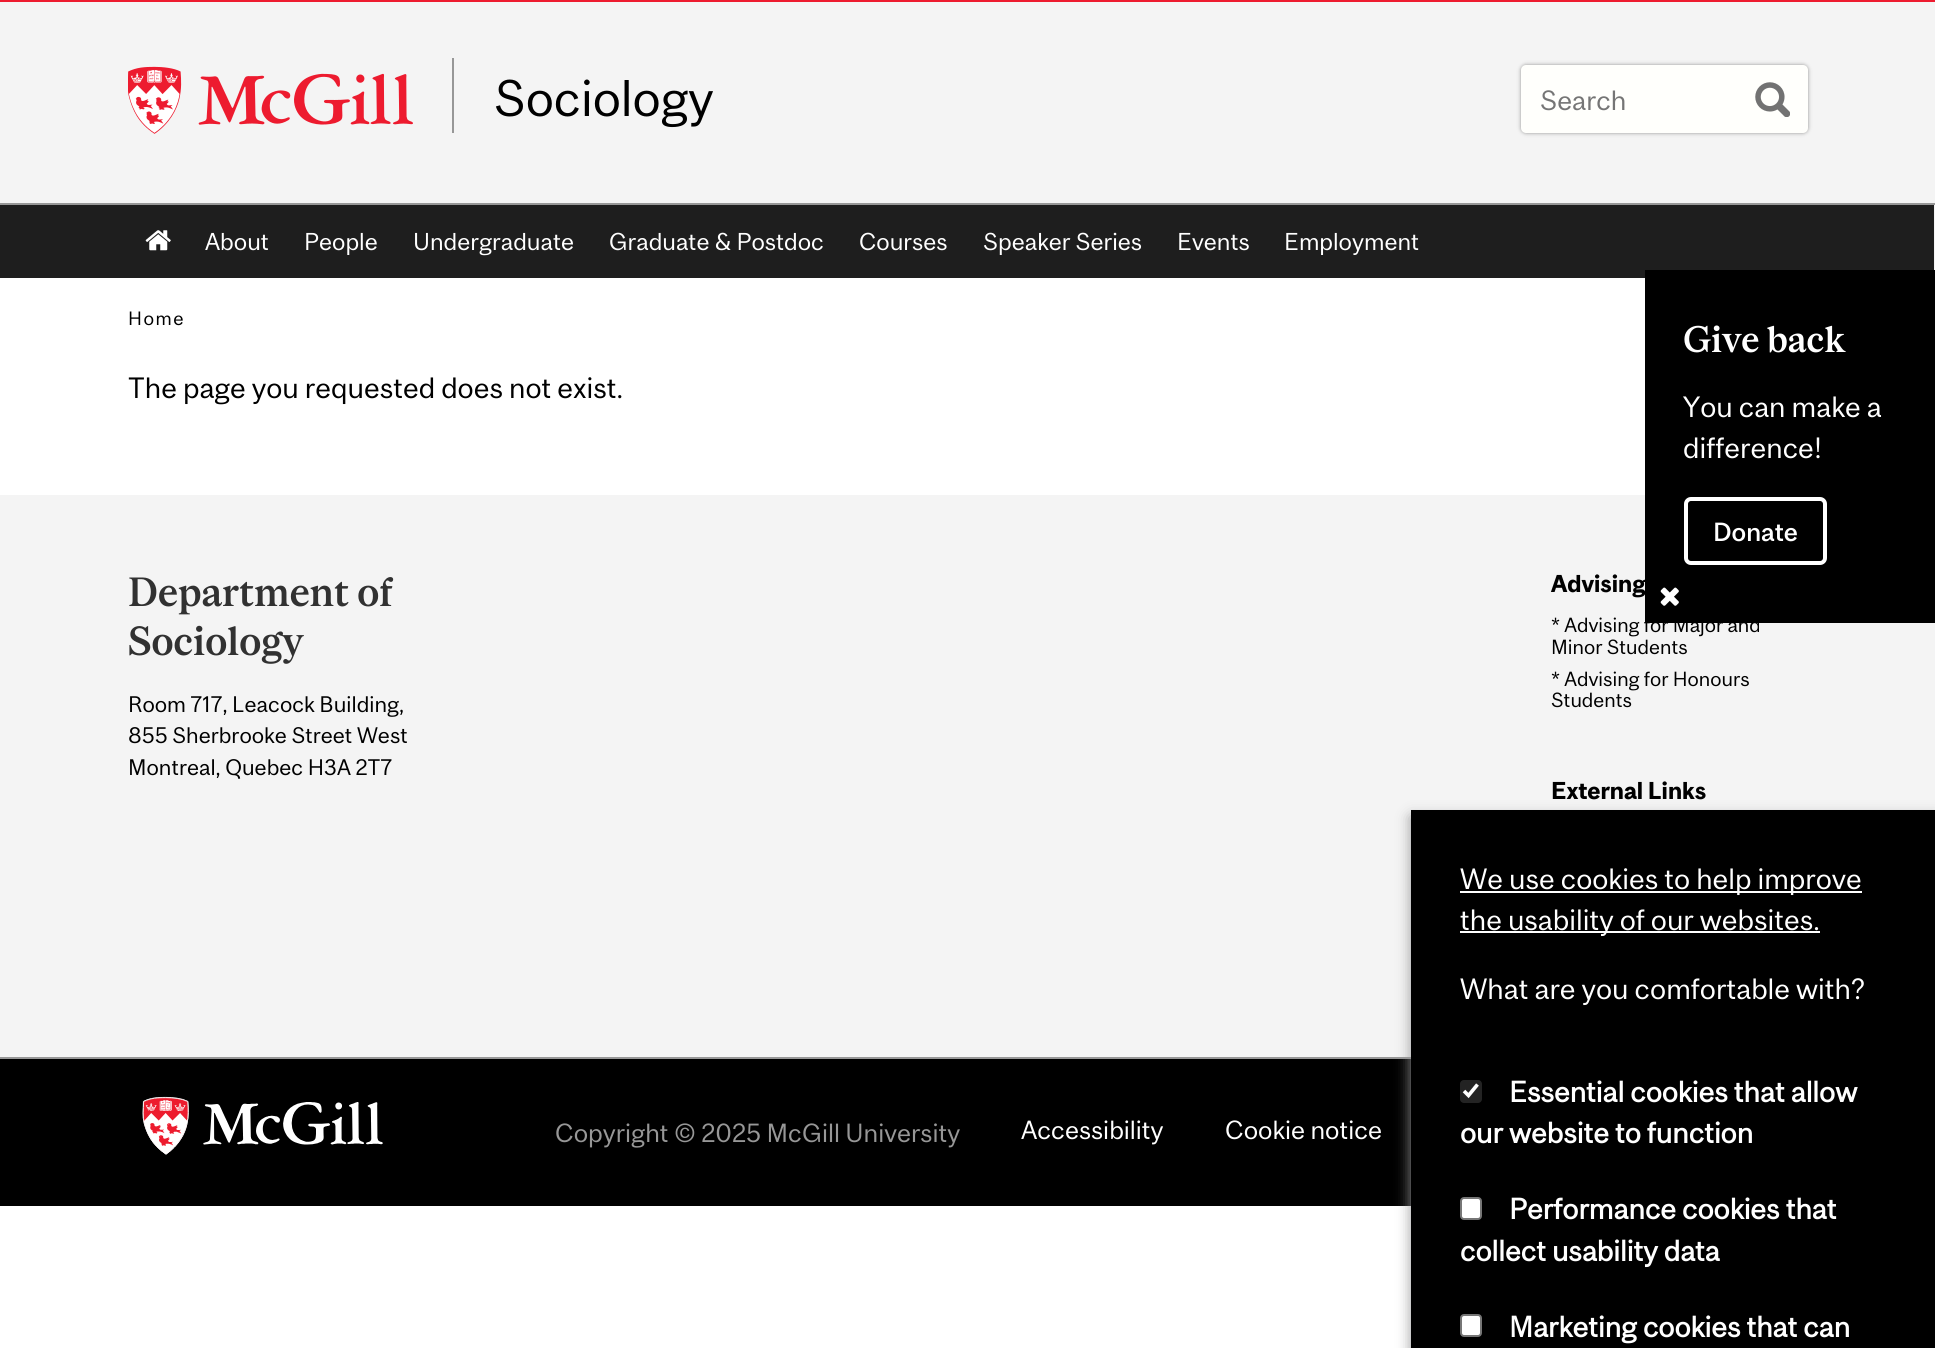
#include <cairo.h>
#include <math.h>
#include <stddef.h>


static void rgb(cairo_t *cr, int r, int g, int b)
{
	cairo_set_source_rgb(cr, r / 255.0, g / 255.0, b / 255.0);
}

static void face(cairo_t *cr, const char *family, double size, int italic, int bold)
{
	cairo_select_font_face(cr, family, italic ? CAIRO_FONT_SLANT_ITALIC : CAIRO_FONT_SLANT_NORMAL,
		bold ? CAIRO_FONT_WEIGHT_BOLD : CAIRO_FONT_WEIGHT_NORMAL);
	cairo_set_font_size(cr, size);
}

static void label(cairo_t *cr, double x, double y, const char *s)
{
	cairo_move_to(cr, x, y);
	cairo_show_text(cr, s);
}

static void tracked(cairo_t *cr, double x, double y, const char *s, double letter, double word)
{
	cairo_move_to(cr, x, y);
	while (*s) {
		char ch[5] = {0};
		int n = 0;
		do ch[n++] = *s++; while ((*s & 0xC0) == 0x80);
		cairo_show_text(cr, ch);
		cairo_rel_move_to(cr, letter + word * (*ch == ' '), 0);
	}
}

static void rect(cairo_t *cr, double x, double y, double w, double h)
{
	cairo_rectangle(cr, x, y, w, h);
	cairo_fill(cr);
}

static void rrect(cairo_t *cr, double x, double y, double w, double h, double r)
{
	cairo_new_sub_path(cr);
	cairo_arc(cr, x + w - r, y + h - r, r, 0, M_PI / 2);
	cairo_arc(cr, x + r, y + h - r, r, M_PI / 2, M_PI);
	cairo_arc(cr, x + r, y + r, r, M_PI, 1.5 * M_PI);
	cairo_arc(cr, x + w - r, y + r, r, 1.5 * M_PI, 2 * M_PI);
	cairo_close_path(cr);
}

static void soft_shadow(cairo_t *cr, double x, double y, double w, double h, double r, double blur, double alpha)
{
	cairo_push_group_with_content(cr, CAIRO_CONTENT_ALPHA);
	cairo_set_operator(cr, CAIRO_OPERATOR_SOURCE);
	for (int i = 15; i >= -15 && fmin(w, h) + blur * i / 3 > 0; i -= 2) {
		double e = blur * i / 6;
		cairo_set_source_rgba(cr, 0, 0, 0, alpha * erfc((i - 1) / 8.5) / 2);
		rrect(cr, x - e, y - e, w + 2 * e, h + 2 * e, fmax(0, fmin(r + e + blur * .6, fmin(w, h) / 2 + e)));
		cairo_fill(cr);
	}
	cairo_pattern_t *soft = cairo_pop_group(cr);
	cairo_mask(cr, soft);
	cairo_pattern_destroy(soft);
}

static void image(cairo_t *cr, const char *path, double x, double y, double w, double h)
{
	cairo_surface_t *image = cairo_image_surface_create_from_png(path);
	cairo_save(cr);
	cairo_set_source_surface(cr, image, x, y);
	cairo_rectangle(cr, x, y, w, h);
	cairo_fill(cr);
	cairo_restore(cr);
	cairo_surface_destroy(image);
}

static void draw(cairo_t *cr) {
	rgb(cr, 255, 255, 255);
	cairo_paint(cr);
	rgb(cr, 244, 244, 244);
	rect(cr, 0, 2, 1935, 201);
	rgb(cr, 237, 27, 47);
	rect(cr, 0, 0, 1935, 2);
	rgb(cr, 151, 151, 151);
	rect(cr, 0, 203, 1935, 2);
	image(cr, "image0.png", 128, 66, 285, 68);
	rect(cr, 452, 58, 2, 75);
	face(cr, "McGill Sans", 48, 0, 0);
	rgb(cr, 0, 0, 0);
	label(cr, 494, 116, "Sociology");
	rgb(cr, 0, 0, 0);
	soft_shadow(cr, 1521, 65, 287, 68, 5, 2, 0.4);
	rgb(cr, 255, 255, 252);
	rrect(cr, 1521, 65, 287, 68, 5);
	cairo_fill(cr);
	face(cr, "McGill Sans", 26, 0, 0);
	rgb(cr, 117, 117, 117);
	label(cr, 1540, 110, "Search");
	image(cr, "image1.png", 1755, 82, 35, 35);
	rgb(cr, 30, 30, 30);
	rect(cr, 0, 205, 1934, 73);
	rgb(cr, 244, 244, 244);
	rect(cr, 1934, 205, 1, 73);
	image(cr, "image2.png", 145, 230, 26, 21);
	face(cr, "McGill Sans", 22.75, 0, 0);
	rgb(cr, 255, 255, 255);
	label(cr, 205, 250, "About");
	label(cr, 304, 250, "People");
	label(cr, 413, 250, "Undergraduate");
	label(cr, 609, 250, "Graduate & Postdoc");
	label(cr, 859, 250, "Courses");
	label(cr, 983, 250, "Speaker Series");
	label(cr, 1177, 250, "Events");
	label(cr, 1284, 250, "Employment");
	face(cr, "McGill Sans", 18, 0, 0);
	rgb(cr, 0, 0, 0);
	tracked(cr, 128, 325, "Home", 1.5, 0);
	face(cr, "McGill Sans", 27.4, 0, 0);
	label(cr, 128, 398, "The page you requested does not exist.");
	rgb(cr, 244, 244, 244);
	rect(cr, 0, 495, 1935, 562);
	rgb(cr, 0, 0, 0);
	rect(cr, 1645, 270, 290, 353);
	face(cr, "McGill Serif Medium", 34.5, 0, 0);
	rgb(cr, 255, 255, 255);
	label(cr, 1683, 352, "Give back");
	face(cr, "McGill Sans", 27.4, 0, 0);
	label(cr, 1683, 417, "You can make a");
	label(cr, 1683, 458, "difference!");
	rrect(cr, 1686, 499, 139, 64, 5);
	cairo_set_line_width(cr, 4);
	cairo_stroke(cr);
	face(cr, "McGill Sans Medium", 24.5, 0, 0);
	label(cr, 1713, 541, "Donate");
	image(cr, "image3.png", 1660, 587, 19, 19);
	face(cr, "McGill Serif Medium", 38, 0, 0);
	rgb(cr, 49, 49, 49);
	label(cr, 128, 606, "Department of");
	label(cr, 128, 655, "Sociology");
	face(cr, "McGill Sans", 21, 0, 0);
	rgb(cr, 0, 0, 0);
	label(cr, 128, 712, "Room 717, Leacock Building,");
	label(cr, 128, 743, "855 Sherbrooke Street West");
	label(cr, 128, 775, "Montreal, Quebec H3A 2T7");
	face(cr, "McGill Sans", 22.75, 0, 1);
	label(cr, 1551, 592, "Advising");
	face(cr, "McGill Sans", 19.1, 0, 0);
	label(cr, 1551, 632, "* Advising for Major and");
	label(cr, 1551, 654, "Minor Students");
	label(cr, 1551, 686, "* Advising for Honours");
	label(cr, 1551, 707, "Students");
	face(cr, "McGill Sans", 22.75, 0, 1);
	label(cr, 1551, 799, "External Links");
	rect(cr, 0, 1059, 1411, 147);
	rgb(cr, 151, 151, 151);
	rect(cr, 0, 1057, 1411, 2);
	image(cr, "image4.png", 142, 1096, 241, 59);
	face(cr, "McGill Sans", 24.5, 0, 0);
	label(cr, 555, 1142, "Copyright © 2025 McGill University");
	rgb(cr, 255, 255, 255);
	label(cr, 1021, 1139, "Accessibility");
	label(cr, 1225, 1139, "Cookie notice");
	rgb(cr, 151, 151, 153);
	soft_shadow(cr, 1411, 817, 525, 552, 0, 7, 1);
	rgb(cr, 0, 0, 0);
	rect(cr, 1411, 810, 524, 538);
	rgb(cr, 255, 255, 255);
	rect(cr, 1460, 891, 402, 2);
	face(cr, "McGill Sans", 27.4, 0, 0);
	label(cr, 1460, 889, "We use cookies to help improve");
	rect(cr, 1460, 931, 360, 2);
	label(cr, 1460, 930, "the usability of our websites.");
	label(cr, 1460, 999, "What are you comfortable with?");
	rgb(cr, 35, 35, 35);
	rrect(cr, 1460, 1080, 22, 23, 4);
	cairo_fill(cr);
	cairo_new_path(cr);
	cairo_move_to(cr, 1464, 1091);
	cairo_line_to(cr, 1468.5, 1095.5);
	cairo_line_to(cr, 1477.5, 1084.5);
	rgb(cr, 255, 255, 255);
	cairo_set_line_width(cr, 3.6);
	cairo_stroke(cr);
	face(cr, "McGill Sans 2", 27.4, 0, 1);
	label(cr, 1509, 1102, "Essential cookies that allow");
	label(cr, 1460, 1143, "our website to function");
	rrect(cr, 1461, 1198, 20, 21, 3);
	cairo_fill_preserve(cr);
	rgb(cr, 118, 118, 118);
	cairo_set_line_width(cr, 2);
	cairo_stroke(cr);
	rgb(cr, 255, 255, 255);
	label(cr, 1509, 1219, "Performance cookies that");
	label(cr, 1460, 1261, "collect usability data");
	rrect(cr, 1461, 1315, 20, 21, 3);
	cairo_fill_preserve(cr);
	rgb(cr, 118, 118, 118);
	cairo_stroke(cr);
	rgb(cr, 255, 255, 255);
	label(cr, 1509, 1337, "Marketing cookies that can");
}

int main(void) {
	cairo_surface_t *surface = cairo_image_surface_create(CAIRO_FORMAT_RGB24, 1935, 1348);
	cairo_t *cr = cairo_create(surface);
	cairo_font_options_t *options = cairo_font_options_create();
	cairo_font_options_set_hint_metrics(options, CAIRO_HINT_METRICS_OFF);
	cairo_font_options_set_hint_style(options, CAIRO_HINT_STYLE_NONE);
	cairo_set_font_options(cr, options);
	cairo_set_miter_limit(cr, 4);
	draw(cr);
	cairo_surface_write_to_png(surface, "render.png");
	cairo_font_options_destroy(options);
	cairo_destroy(cr);
	cairo_surface_destroy(surface);
	return 0;
}
